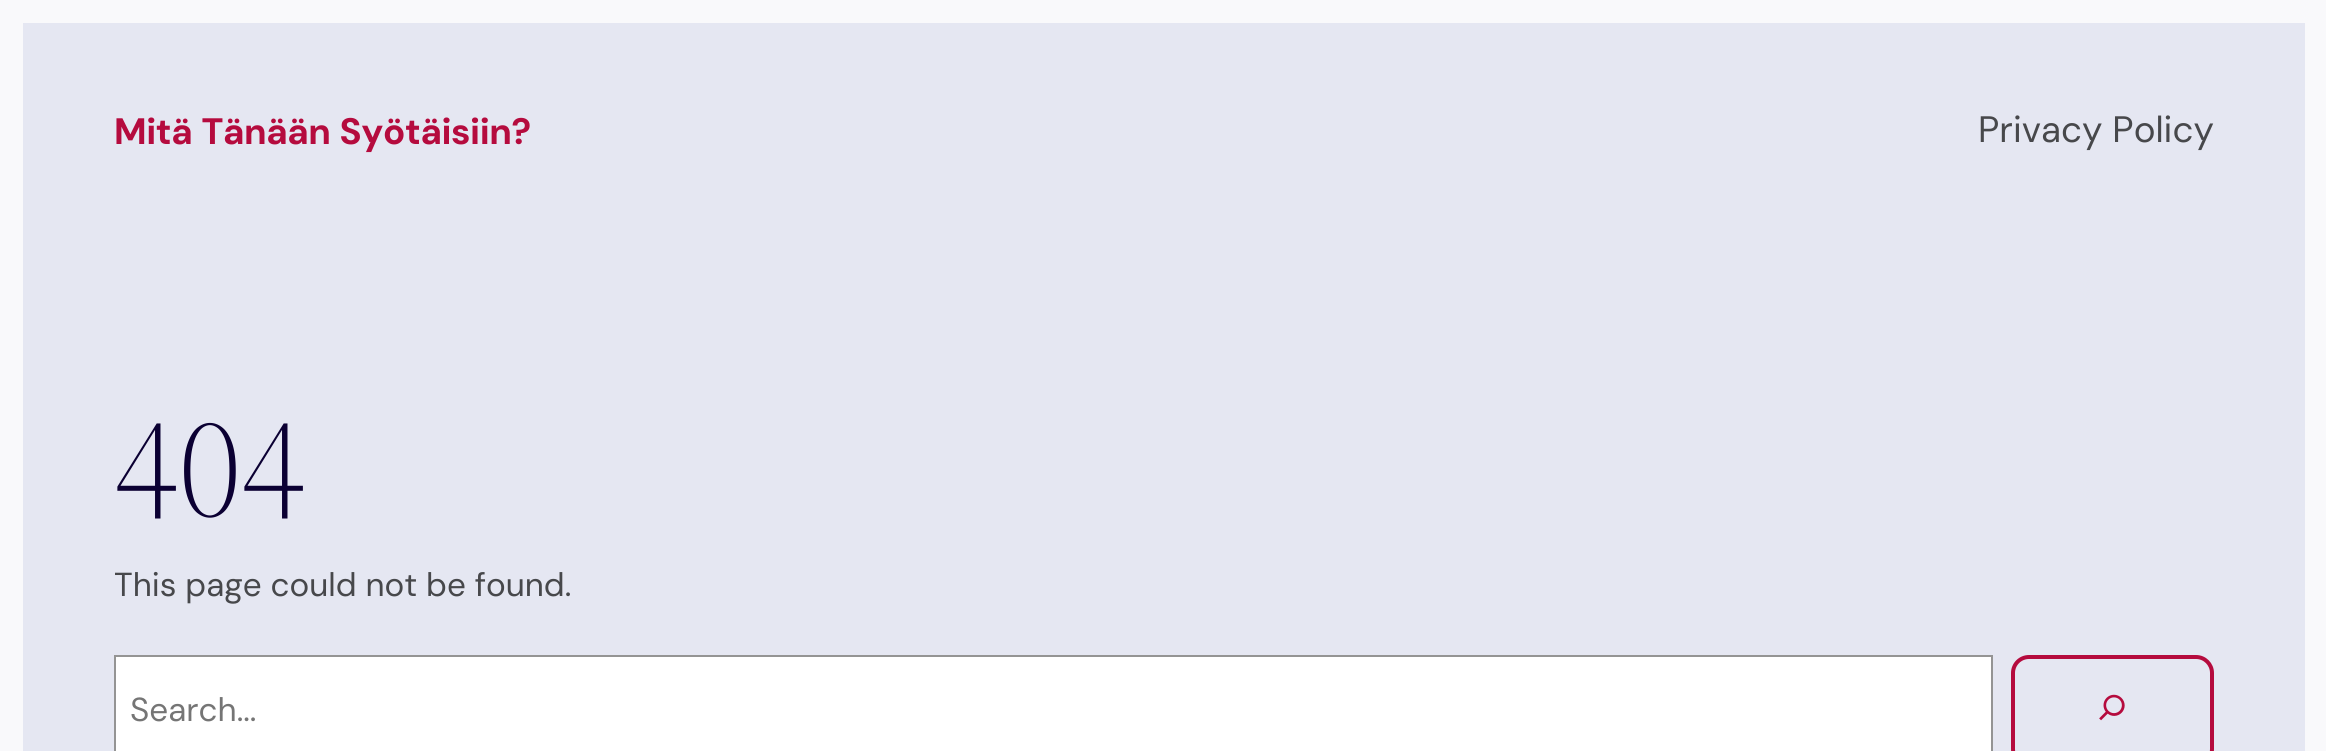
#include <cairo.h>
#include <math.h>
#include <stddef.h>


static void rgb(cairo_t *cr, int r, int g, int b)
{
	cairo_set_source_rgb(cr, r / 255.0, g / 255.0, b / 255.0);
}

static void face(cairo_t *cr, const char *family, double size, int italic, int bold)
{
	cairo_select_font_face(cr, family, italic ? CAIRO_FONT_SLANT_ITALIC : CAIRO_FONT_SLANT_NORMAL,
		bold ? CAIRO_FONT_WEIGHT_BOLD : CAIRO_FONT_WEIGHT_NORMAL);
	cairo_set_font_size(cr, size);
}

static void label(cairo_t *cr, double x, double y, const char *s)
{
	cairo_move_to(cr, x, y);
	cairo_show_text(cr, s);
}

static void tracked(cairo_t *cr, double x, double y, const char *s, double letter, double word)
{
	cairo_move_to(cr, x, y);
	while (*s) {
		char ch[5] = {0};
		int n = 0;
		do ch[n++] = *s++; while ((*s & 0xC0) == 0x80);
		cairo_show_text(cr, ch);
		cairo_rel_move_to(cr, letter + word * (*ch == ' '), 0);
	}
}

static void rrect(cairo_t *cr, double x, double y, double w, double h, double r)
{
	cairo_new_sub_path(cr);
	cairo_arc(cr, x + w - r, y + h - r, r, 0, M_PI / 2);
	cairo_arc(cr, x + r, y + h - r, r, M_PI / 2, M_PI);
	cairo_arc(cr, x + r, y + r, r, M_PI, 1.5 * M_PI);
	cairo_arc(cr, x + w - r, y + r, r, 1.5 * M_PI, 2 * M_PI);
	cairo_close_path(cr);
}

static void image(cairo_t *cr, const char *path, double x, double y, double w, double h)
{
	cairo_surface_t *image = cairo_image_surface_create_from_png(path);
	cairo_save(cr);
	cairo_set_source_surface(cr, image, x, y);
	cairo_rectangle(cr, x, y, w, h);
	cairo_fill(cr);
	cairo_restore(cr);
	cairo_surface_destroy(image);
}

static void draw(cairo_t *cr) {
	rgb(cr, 229, 231, 242);
	cairo_paint(cr);
	cairo_rectangle(cr, 11.5, 11.5, 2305, 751);
	rgb(cr, 249, 249, 251);
	cairo_set_line_width(cr, 23);
	cairo_stroke(cr);
	face(cr, "DM Sans", 36.75, 0, 1);
	rgb(cr, 181, 11, 62);
	tracked(cr, 114, 144, "Mitä Tänään Syötäisiin?", -0.4, 1);
	face(cr, "DM Sans", 36.75, 0, 0);
	rgb(cr, 71, 72, 75);
	label(cr, 1978, 142, "Privacy Policy");
	face(cr, "Source Serif 4 Light", 140, 0, 0);
	rgb(cr, 11, 0, 51);
	tracked(cr, 114, 516, "404", -1.5, 0);
	face(cr, "DM Sans", 33.25, 0, 0);
	rgb(cr, 71, 72, 75);
	label(cr, 114, 596, "This page could not be found.");
	rgb(cr, 255, 255, 255);
	cairo_rectangle(cr, 115, 656, 1877, 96);
	cairo_fill_preserve(cr);
	rgb(cr, 148, 148, 148);
	cairo_set_line_width(cr, 2);
	cairo_stroke(cr);
	rgb(cr, 117, 117, 117);
	label(cr, 130, 721, "Search...");
	rrect(cr, 2013, 657, 199, 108, 16);
	rgb(cr, 181, 11, 62);
	cairo_set_line_width(cr, 4);
	cairo_stroke(cr);
	image(cr, "image0.png", 2099, 694, 26, 27);
}

int main(void) {
	cairo_surface_t *surface = cairo_image_surface_create(CAIRO_FORMAT_RGB24, 2326, 751);
	cairo_t *cr = cairo_create(surface);
	cairo_font_options_t *options = cairo_font_options_create();
	cairo_font_options_set_hint_metrics(options, CAIRO_HINT_METRICS_OFF);
	cairo_font_options_set_hint_style(options, CAIRO_HINT_STYLE_NONE);
	cairo_set_font_options(cr, options);
	cairo_set_miter_limit(cr, 4);
	draw(cr);
	cairo_surface_write_to_png(surface, "render.png");
	cairo_font_options_destroy(options);
	cairo_destroy(cr);
	cairo_surface_destroy(surface);
	return 0;
}
